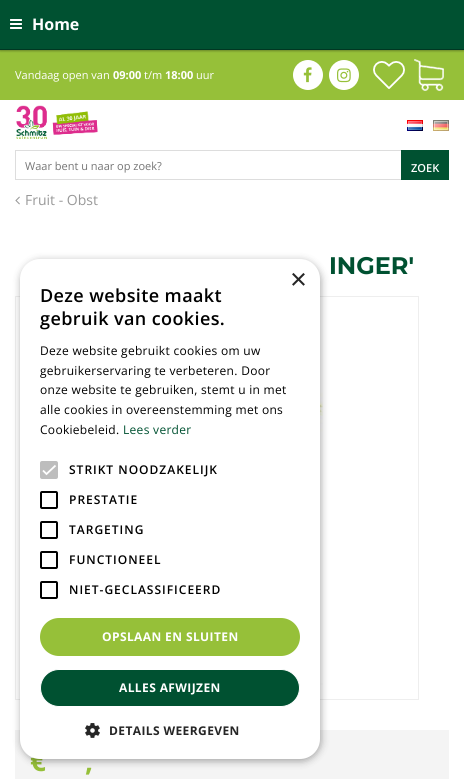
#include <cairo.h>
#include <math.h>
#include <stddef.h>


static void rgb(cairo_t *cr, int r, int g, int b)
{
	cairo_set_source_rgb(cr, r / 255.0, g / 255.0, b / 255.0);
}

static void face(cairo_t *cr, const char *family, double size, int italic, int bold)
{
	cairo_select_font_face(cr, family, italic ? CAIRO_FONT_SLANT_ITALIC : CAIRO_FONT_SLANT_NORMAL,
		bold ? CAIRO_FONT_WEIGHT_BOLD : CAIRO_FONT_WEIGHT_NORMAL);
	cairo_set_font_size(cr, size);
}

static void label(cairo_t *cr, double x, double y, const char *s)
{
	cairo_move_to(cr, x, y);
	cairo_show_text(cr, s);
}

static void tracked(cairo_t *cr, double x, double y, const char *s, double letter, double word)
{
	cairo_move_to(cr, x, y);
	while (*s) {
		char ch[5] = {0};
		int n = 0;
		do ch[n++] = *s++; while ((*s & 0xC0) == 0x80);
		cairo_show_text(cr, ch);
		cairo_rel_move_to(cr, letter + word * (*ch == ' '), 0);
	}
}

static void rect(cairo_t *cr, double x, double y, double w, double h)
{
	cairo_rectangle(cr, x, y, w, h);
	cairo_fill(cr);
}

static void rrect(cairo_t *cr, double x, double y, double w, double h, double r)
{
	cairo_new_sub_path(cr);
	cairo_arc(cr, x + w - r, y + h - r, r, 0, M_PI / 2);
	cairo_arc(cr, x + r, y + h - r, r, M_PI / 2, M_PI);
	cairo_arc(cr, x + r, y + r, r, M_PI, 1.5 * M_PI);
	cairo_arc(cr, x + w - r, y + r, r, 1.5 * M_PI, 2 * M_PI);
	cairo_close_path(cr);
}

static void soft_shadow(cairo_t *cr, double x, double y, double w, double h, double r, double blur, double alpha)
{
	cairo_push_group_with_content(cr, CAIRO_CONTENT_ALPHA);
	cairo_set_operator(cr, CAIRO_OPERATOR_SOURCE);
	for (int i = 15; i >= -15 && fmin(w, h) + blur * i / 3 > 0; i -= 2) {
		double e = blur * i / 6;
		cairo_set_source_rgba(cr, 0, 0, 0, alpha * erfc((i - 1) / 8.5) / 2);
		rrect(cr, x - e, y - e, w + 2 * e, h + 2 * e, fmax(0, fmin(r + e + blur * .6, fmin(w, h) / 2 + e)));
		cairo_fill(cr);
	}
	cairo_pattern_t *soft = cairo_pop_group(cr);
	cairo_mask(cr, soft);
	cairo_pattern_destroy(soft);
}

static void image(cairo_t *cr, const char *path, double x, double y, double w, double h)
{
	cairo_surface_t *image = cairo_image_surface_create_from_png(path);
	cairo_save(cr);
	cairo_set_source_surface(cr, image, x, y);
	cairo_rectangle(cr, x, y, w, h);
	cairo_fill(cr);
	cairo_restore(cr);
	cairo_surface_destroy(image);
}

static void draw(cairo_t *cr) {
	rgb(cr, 255, 255, 255);
	cairo_paint(cr);
	rgb(cr, 150, 192, 57);
	rect(cr, 0, 50, 464, 50);
	rgb(cr, 0, 0, 0);
	soft_shadow(cr, 0, 1, 464, 50, 0, 1, 0.3);
	rgb(cr, 0, 81, 49);
	rect(cr, 0, 0, 464, 49);
	rgb(cr, 0, 55, 34);
	rect(cr, 0, 49, 464, 1);
	image(cr, "image0.png", 10, 19, 12, 10);
	face(cr, "Open Sans", 16, 0, 1);
	rgb(cr, 255, 255, 255);
	label(cr, 32, 30, "Home");
	face(cr, "Open Sans", 11, 0, 0);
	label(cr, 15, 79, "Vandaag open van");
	face(cr, "Open Sans", 11, 0, 1);
	label(cr, 113, 79, "09:00");
	face(cr, "Open Sans", 11, 0, 0);
	label(cr, 144, 79, "t/m");
	face(cr, "Open Sans", 11, 0, 1);
	label(cr, 165, 79, "18:00");
	face(cr, "Open Sans", 11, 0, 0);
	label(cr, 196, 79, "uur");
	cairo_new_path(cr);
	cairo_arc(cr, 308, 75, 15, 0, 2 * M_PI);
	cairo_fill(cr);
	image(cr, "image1.png", 303, 67, 9, 16);
	cairo_arc(cr, 344, 75, 15, 0, 2 * M_PI);
	cairo_fill(cr);
	image(cr, "image2.png", 337, 68, 14, 15);
	image(cr, "image3.png", 373, 61, 32, 28);
	image(cr, "image4.png", 414, 59, 30, 32);
	image(cr, "image5.png", 16, 105, 82, 34);
	image(cr, "image6.png", 407, 120, 16, 11);
	image(cr, "image7.png", 433, 120, 16, 11);
	cairo_rectangle(cr, 15.5, 150.5, 433, 29);
	rgb(cr, 221, 221, 221);
	cairo_set_line_width(cr, 1);
	cairo_stroke(cr);
	rgb(cr, 117, 117, 117);
	label(cr, 25, 170, "Waar bent u naar op zoek?");
	rgb(cr, 0, 81, 49);
	rect(cr, 401, 150, 48, 30);
	face(cr, "Open Sans SemiBold", 11, 0, 0);
	rgb(cr, 255, 255, 255);
	label(cr, 411, 172, "ZOEK");
	face(cr, "Montserrat", 24, 0, 1);
	rgb(cr, 0, 81, 49);
	label(cr, 329, 274, "INGER'");
	cairo_rectangle(cr, 15.5, 296.5, 403, 403);
	rgb(cr, 238, 238, 238);
	cairo_stroke(cr);
	image(cr, "image8.png", 320, 324, 3, 361);
	rgb(cr, 244, 244, 244);
	rect(cr, 15, 730, 434, 49);
	face(cr, "Open Sans", 28, 0, 1);
	rgb(cr, 150, 192, 57);
	label(cr, 30, 771, "€");
	label(cr, 85, 771, ",");
	image(cr, "image9.png", 15, 196, 5, 9);
	face(cr, "Open Sans", 14, 0, 0);
	rgb(cr, 153, 153, 153);
	label(cr, 25, 205, "Fruit - Obst");
	rgb(cr, 0, 0, 0);
	soft_shadow(cr, 21, 261, 300, 500, 20, 4, 0.35);
	rgb(cr, 255, 255, 255);
	rrect(cr, 20, 259, 300, 500, 20);
	cairo_fill(cr);
	face(cr, "Liberation Sans", 29, 0, 0);
	rgb(cr, 38, 38, 38);
	label(cr, 290, 289, "×");
	face(cr, "Open Sans SemiBold", 18, 0, 0);
	rgb(cr, 0, 0, 0);
	tracked(cr, 40, 302, "Deze website maakt", 0.4, 0);
	tracked(cr, 40, 325, "gebruik van cookies.", 0.4, 0);
	face(cr, "Open Sans", 12, 0, 0);
	tracked(cr, 40, 355, "Deze website gebruikt cookies om uw", 0.3, 0);
	tracked(cr, 40, 375, "gebruikerservaring te verbeteren. Door", 0.3, 0);
	tracked(cr, 40, 394, "onze website te gebruiken, stemt u in met", 0.3, 0);
	tracked(cr, 40, 414, "alle cookies in overeenstemming met ons", 0.3, 0);
	tracked(cr, 40, 434, "Cookiebeleid.", 0.3, 0);
	rgb(cr, 0, 81, 49);
	tracked(cr, 123, 434, "Lees verder", 0.3, 0);
	rgb(cr, 189, 189, 189);
	rrect(cr, 40, 461, 18, 18, 2);
	cairo_fill(cr);
	cairo_new_path(cr);
	cairo_move_to(cr, 43, 470.5);
	cairo_line_to(cr, 46.5, 474);
	cairo_line_to(cr, 55.5, 465.5);
	rgb(cr, 255, 255, 255);
	cairo_set_line_width(cr, 1.8);
	cairo_stroke(cr);
	face(cr, "Open Sans SemiBold", 12, 0, 0);
	rgb(cr, 0, 0, 0);
	tracked(cr, 69, 474, "STRIKT NOODZAKELIJK", 1, 0);
	rrect(cr, 41, 492, 16, 16, 1);
	cairo_set_line_width(cr, 2);
	cairo_stroke(cr);
	tracked(cr, 69, 504, "PRESTATIE", 1, 0);
	rrect(cr, 41, 522, 16, 16, 1);
	cairo_stroke(cr);
	tracked(cr, 69, 534, "TARGETING", 1, 0);
	rrect(cr, 41, 552, 16, 16, 1);
	cairo_stroke(cr);
	tracked(cr, 69, 564, "FUNCTIONEEL", 1, 0);
	rrect(cr, 41, 582, 16, 16, 1);
	cairo_stroke(cr);
	tracked(cr, 69, 594, "NIET-GECLASSIFICEERD", 1, 0);
	rgb(cr, 150, 192, 57);
	rrect(cr, 40, 618, 260, 38, 19);
	cairo_fill(cr);
	face(cr, "Open Sans", 12, 0, 1);
	rgb(cr, 255, 255, 255);
	tracked(cr, 102, 641, "OPSLAAN EN SLUITEN", 0.4, 0);
	rgb(cr, 0, 81, 49);
	rrect(cr, 40.5, 669.5, 259, 37, 18.5);
	cairo_fill_preserve(cr);
	rgb(cr, 255, 255, 255);
	cairo_set_line_width(cr, 1);
	cairo_stroke(cr);
	tracked(cr, 119, 692, "ALLES AFWIJZEN", 0.4, 0);
	image(cr, "image10.png", 85, 723, 15, 15);
	rgb(cr, 38, 38, 38);
	tracked(cr, 109, 735, "DETAILS WEERGEVEN", 0.4, 0);
}

int main(void) {
	cairo_surface_t *surface = cairo_image_surface_create(CAIRO_FORMAT_RGB24, 464, 779);
	cairo_t *cr = cairo_create(surface);
	cairo_font_options_t *options = cairo_font_options_create();
	cairo_font_options_set_hint_metrics(options, CAIRO_HINT_METRICS_OFF);
	cairo_font_options_set_hint_style(options, CAIRO_HINT_STYLE_NONE);
	cairo_set_font_options(cr, options);
	cairo_set_miter_limit(cr, 4);
	draw(cr);
	cairo_surface_write_to_png(surface, "render.png");
	cairo_font_options_destroy(options);
	cairo_destroy(cr);
	cairo_surface_destroy(surface);
	return 0;
}
